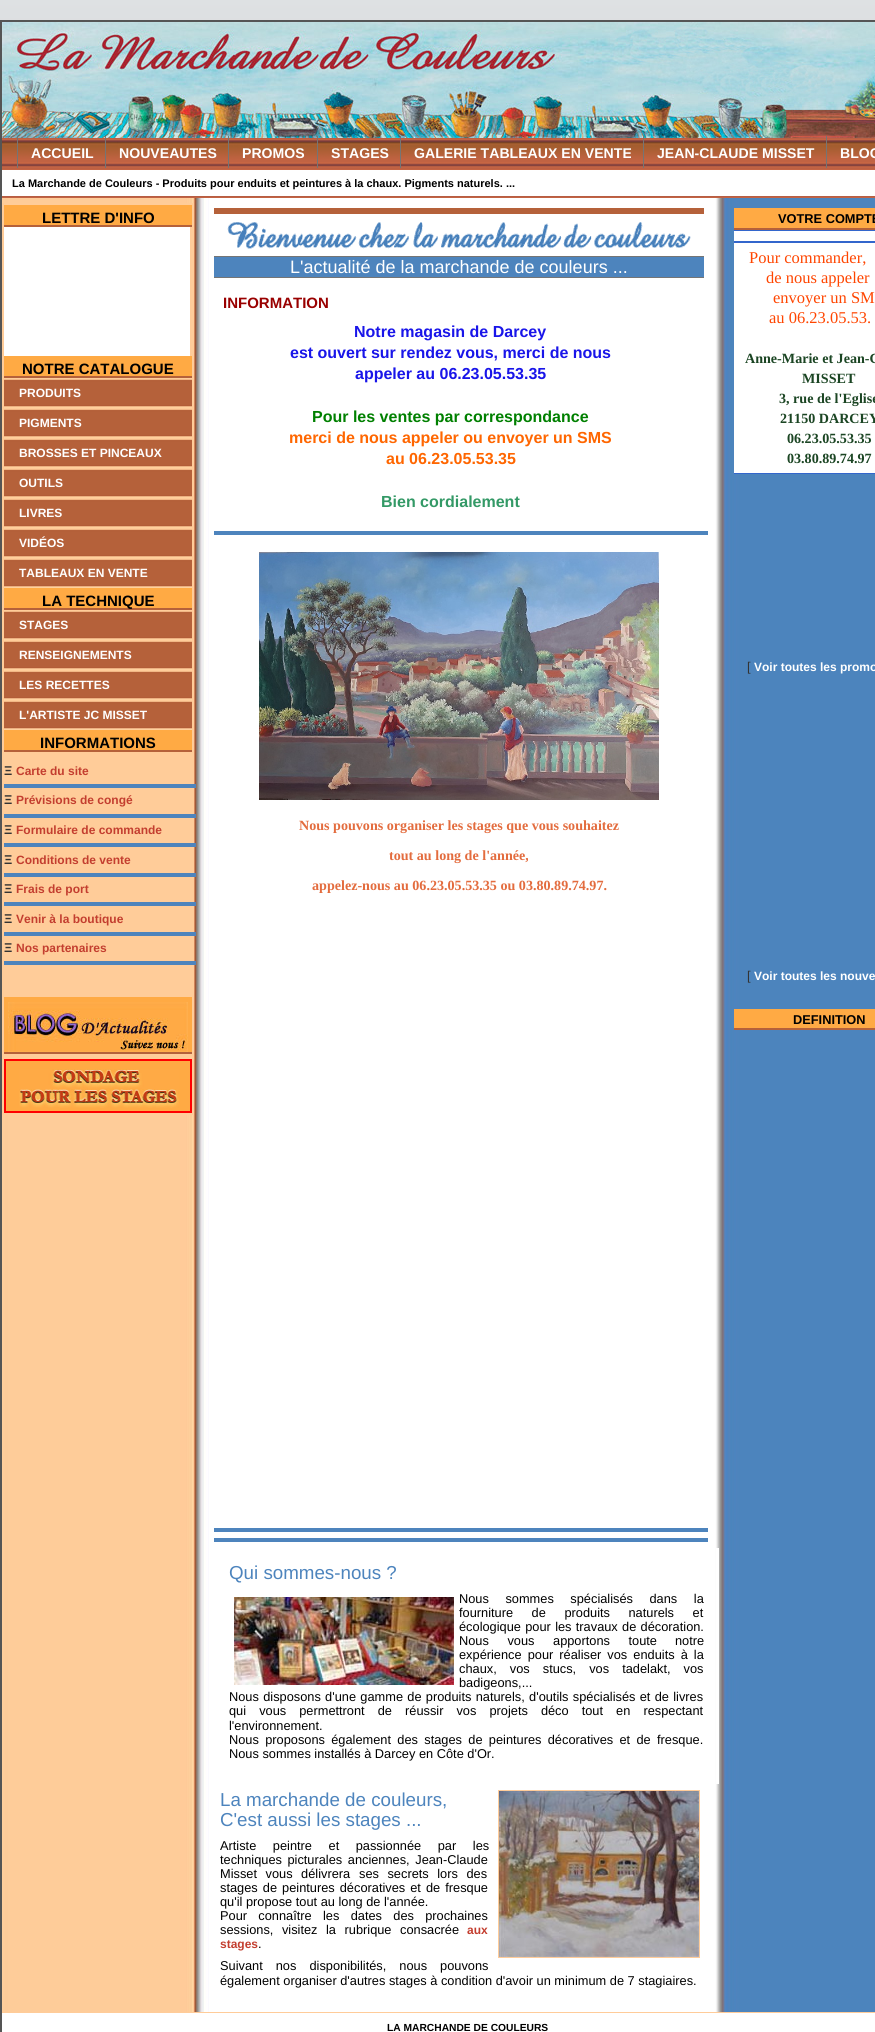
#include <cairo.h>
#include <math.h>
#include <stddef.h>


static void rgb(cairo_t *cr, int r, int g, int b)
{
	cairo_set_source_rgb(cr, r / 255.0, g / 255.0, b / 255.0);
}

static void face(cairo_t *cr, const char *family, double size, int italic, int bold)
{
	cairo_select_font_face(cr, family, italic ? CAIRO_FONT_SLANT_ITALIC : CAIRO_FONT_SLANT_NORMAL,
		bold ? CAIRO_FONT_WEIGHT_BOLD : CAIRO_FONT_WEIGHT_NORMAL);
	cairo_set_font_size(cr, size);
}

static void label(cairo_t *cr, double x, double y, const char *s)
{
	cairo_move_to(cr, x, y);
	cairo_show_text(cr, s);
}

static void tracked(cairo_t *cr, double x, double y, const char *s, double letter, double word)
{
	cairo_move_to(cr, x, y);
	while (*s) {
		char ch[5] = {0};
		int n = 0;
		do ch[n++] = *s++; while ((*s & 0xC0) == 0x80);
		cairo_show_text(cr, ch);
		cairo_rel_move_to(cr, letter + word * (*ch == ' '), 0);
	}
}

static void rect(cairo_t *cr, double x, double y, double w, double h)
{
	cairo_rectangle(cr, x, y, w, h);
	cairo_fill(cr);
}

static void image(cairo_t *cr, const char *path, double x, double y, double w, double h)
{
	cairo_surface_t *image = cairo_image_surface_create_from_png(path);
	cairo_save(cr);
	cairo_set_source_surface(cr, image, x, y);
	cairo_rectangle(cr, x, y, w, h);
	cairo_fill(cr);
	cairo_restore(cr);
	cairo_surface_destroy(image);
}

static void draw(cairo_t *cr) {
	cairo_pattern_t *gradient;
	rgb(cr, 255, 255, 255);
	cairo_paint(cr);
	gradient = cairo_pattern_create_linear(438, 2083, 438, 0);
	cairo_pattern_add_color_stop_rgba(gradient, 0, 0.263, 0.243, 0.247, 1);
	cairo_pattern_add_color_stop_rgba(gradient, 1, 0.871, 0.882, 0.89, 1);
	cairo_set_source(cr, gradient);
	cairo_pattern_destroy(gradient);
	rect(cr, 0, 0, 875, 20);
	image(cr, "image0.png", 2, 198, 873, 1814);
	cairo_rectangle(cr, 1, 21, 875, 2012);
	rgb(cr, 85, 85, 85);
	cairo_stroke(cr);
	image(cr, "image1.png", 2, 22, 873, 116);
	image(cr, "image2.png", 2, 138, 873, 30);
	face(cr, "Liberation Sans", 14.1, 0, 1);
	rgb(cr, 255, 255, 255);
	label(cr, 31, 158, "ACCUEIL");
	rgb(cr, 117, 117, 117);
	rect(cr, 17, 136, 1, 34);
	rgb(cr, 255, 255, 255);
	label(cr, 119, 158, "NOUVEAUTES");
	rgb(cr, 117, 117, 117);
	rect(cr, 105, 136, 1, 34);
	rgb(cr, 255, 255, 255);
	label(cr, 242, 158, "PROMOS");
	rgb(cr, 117, 117, 117);
	rect(cr, 228, 136, 1, 34);
	rgb(cr, 255, 255, 255);
	label(cr, 331, 158, "STAGES");
	rgb(cr, 117, 117, 117);
	rect(cr, 317, 136, 1, 34);
	rgb(cr, 255, 255, 255);
	label(cr, 414, 158, "GALERIE TABLEAUX EN VENTE");
	rgb(cr, 117, 117, 117);
	rect(cr, 400, 136, 1, 34);
	rgb(cr, 255, 255, 255);
	label(cr, 657, 158, "JEAN-CLAUDE MISSET");
	rgb(cr, 117, 117, 117);
	rect(cr, 643, 136, 1, 34);
	rgb(cr, 255, 255, 255);
	label(cr, 840, 158, "BLOG");
	rgb(cr, 117, 117, 117);
	rect(cr, 826, 136, 1, 34);
	image(cr, "image3.png", 2, 168, 873, 30);
	face(cr, "Liberation Sans", 11, 0, 1);
	rgb(cr, 0, 0, 0);
	label(cr, 12, 187, "La Marchande de Couleurs - Produits pour enduits et peintures à la chaux. Pigments naturels. ...");
	rgb(cr, 255, 204, 153);
	rect(cr, 2, 203, 192, 912);
	rgb(cr, 255, 170, 68);
	rect(cr, 4, 205, 188, 20);
	rgb(cr, 181, 97, 58);
	rect(cr, 4, 225, 188, 2);
	face(cr, "Liberation Sans", 15, 0, 1);
	rgb(cr, 0, 0, 0);
	label(cr, 42, 223, "LETTRE D'INFO");
	rgb(cr, 255, 255, 255);
	rect(cr, 4, 227, 186, 129);
	rgb(cr, 255, 170, 68);
	rect(cr, 4, 356, 188, 20);
	rgb(cr, 181, 97, 58);
	rect(cr, 4, 376, 188, 2);
	rgb(cr, 0, 0, 0);
	label(cr, 22, 374, "NOTRE CATALOGUE");
	image(cr, "image4.png", 4, 379, 188, 29);
	face(cr, "Liberation Sans", 12, 0, 1);
	rgb(cr, 255, 255, 255);
	label(cr, 19, 397, "PRODUITS");
	image(cr, "image4.png", 4, 409, 188, 29);
	label(cr, 19, 427, "PIGMENTS");
	image(cr, "image4.png", 4, 439, 188, 29);
	label(cr, 19, 457, "BROSSES ET PINCEAUX");
	image(cr, "image4.png", 4, 469, 188, 29);
	label(cr, 19, 487, "OUTILS");
	image(cr, "image4.png", 4, 499, 188, 29);
	label(cr, 19, 517, "LIVRES");
	image(cr, "image4.png", 4, 529, 188, 29);
	label(cr, 19, 547, "VIDÉOS");
	image(cr, "image4.png", 4, 559, 188, 29);
	label(cr, 19, 577, "TABLEAUX EN VENTE");
	rgb(cr, 255, 170, 68);
	rect(cr, 4, 588, 188, 20);
	rgb(cr, 181, 97, 58);
	rect(cr, 4, 608, 188, 2);
	face(cr, "Liberation Sans", 15, 0, 1);
	rgb(cr, 0, 0, 0);
	label(cr, 42, 606, "LA TECHNIQUE");
	image(cr, "image4.png", 4, 611, 188, 29);
	face(cr, "Liberation Sans", 12, 0, 1);
	rgb(cr, 255, 255, 255);
	label(cr, 19, 629, "STAGES");
	image(cr, "image4.png", 4, 641, 188, 29);
	label(cr, 19, 659, "RENSEIGNEMENTS");
	image(cr, "image4.png", 4, 671, 188, 29);
	label(cr, 19, 689, "LES RECETTES");
	image(cr, "image4.png", 4, 701, 188, 29);
	label(cr, 19, 719, "L'ARTISTE JC MISSET");
	rgb(cr, 255, 170, 68);
	rect(cr, 4, 730, 188, 20);
	rgb(cr, 181, 97, 58);
	rect(cr, 4, 750, 188, 2);
	face(cr, "Liberation Sans", 15, 0, 1);
	rgb(cr, 0, 0, 0);
	label(cr, 40, 748, "INFORMATIONS");
	face(cr, "Liberation Sans", 12.8, 0, 1);
	rgb(cr, 51, 51, 51);
	label(cr, 4, 775, "Ξ");
	face(cr, "Liberation Sans", 12, 0, 1);
	rgb(cr, 195, 62, 47);
	label(cr, 16, 775, "Carte du site");
	rgb(cr, 77, 132, 189);
	rect(cr, 4, 784, 192, 4);
	face(cr, "Liberation Sans", 12.8, 0, 1);
	rgb(cr, 51, 51, 51);
	label(cr, 4, 804, "Ξ");
	face(cr, "Liberation Sans", 12, 0, 1);
	rgb(cr, 195, 62, 47);
	label(cr, 16, 804, "Prévisions de congé");
	rgb(cr, 77, 132, 189);
	rect(cr, 4, 814, 192, 4);
	face(cr, "Liberation Sans", 12.8, 0, 1);
	rgb(cr, 51, 51, 51);
	label(cr, 4, 834, "Ξ");
	face(cr, "Liberation Sans", 12, 0, 1);
	rgb(cr, 195, 62, 47);
	label(cr, 16, 834, "Formulaire de commande");
	rgb(cr, 77, 132, 189);
	rect(cr, 4, 843, 192, 4);
	face(cr, "Liberation Sans", 12.8, 0, 1);
	rgb(cr, 51, 51, 51);
	label(cr, 4, 864, "Ξ");
	face(cr, "Liberation Sans", 12, 0, 1);
	rgb(cr, 195, 62, 47);
	label(cr, 16, 864, "Conditions de vente");
	rgb(cr, 77, 132, 189);
	rect(cr, 4, 873, 192, 4);
	face(cr, "Liberation Sans", 12.8, 0, 1);
	rgb(cr, 51, 51, 51);
	label(cr, 4, 893, "Ξ");
	face(cr, "Liberation Sans", 12, 0, 1);
	rgb(cr, 195, 62, 47);
	label(cr, 16, 893, "Frais de port");
	rgb(cr, 77, 132, 189);
	rect(cr, 4, 902, 192, 4);
	face(cr, "Liberation Sans", 12.8, 0, 1);
	rgb(cr, 51, 51, 51);
	label(cr, 4, 923, "Ξ");
	face(cr, "Liberation Sans", 12, 0, 1);
	rgb(cr, 195, 62, 47);
	label(cr, 16, 923, "Venir à la boutique");
	rgb(cr, 77, 132, 189);
	rect(cr, 4, 932, 192, 4);
	face(cr, "Liberation Sans", 12.8, 0, 1);
	rgb(cr, 51, 51, 51);
	label(cr, 4, 952, "Ξ");
	face(cr, "Liberation Sans", 12, 0, 1);
	rgb(cr, 195, 62, 47);
	label(cr, 16, 952, "Nos partenaires");
	rgb(cr, 77, 132, 189);
	rect(cr, 4, 961, 192, 4);
	rgb(cr, 255, 170, 68);
	rect(cr, 4, 997, 188, 55);
	rgb(cr, 181, 97, 58);
	rect(cr, 4, 1052, 188, 2);
	image(cr, "image5.png", 8, 1002, 180, 50);
	rgb(cr, 255, 170, 68);
	cairo_rectangle(cr, 5, 1060, 186, 52);
	cairo_fill_preserve(cr);
	rgb(cr, 255, 0, 0);
	cairo_stroke(cr);
	image(cr, "image6.png", 19, 1069, 160, 39);
	rgb(cr, 181, 97, 58);
	rect(cr, 214, 208, 490, 6);
	image(cr, "image7.png", 227, 222, 464, 27);
	rgb(cr, 77, 132, 189);
	rect(cr, 214, 257, 490, 20);
	rgb(cr, 117, 117, 117);
	rect(cr, 214, 256, 490, 1);
	rect(cr, 214, 277, 490, 1);
	face(cr, "Liberation Sans", 18, 0, 0);
	rgb(cr, 255, 255, 255);
	label(cr, 290, 273, "L'actualité de la marchande de couleurs ...");
	face(cr, "Liberation Sans", 15, 0, 1);
	rgb(cr, 153, 0, 0);
	label(cr, 223, 308, "INFORMATION");
	face(cr, "Liberation Sans", 16, 0, 1);
	rgb(cr, 25, 21, 233);
	label(cr, 354, 337, "Notre magasin de Darcey");
	label(cr, 290, 358, "est ouvert sur rendez vous, merci de nous");
	label(cr, 355, 379, "appeler au 06.23.05.53.35");
	rgb(cr, 0, 128, 0);
	label(cr, 312, 422, "Pour les ventes par correspondance");
	rgb(cr, 255, 102, 0);
	label(cr, 289, 443, "merci de nous appeler ou envoyer un SMS");
	label(cr, 386, 464, "au 06.23.05.53.35");
	rgb(cr, 51, 153, 102);
	label(cr, 381, 507, "Bien cordialement");
	rgb(cr, 77, 132, 189);
	rect(cr, 214, 531, 494, 4);
	image(cr, "image8.png", 259, 552, 400, 248);
	face(cr, "Liberation Serif", 14.1, 0, 1);
	rgb(cr, 227, 108, 62);
	label(cr, 299, 830, "Nous pouvons organiser les stages que vous souhaitez");
	label(cr, 389, 860, "tout au long de l'année,");
	label(cr, 312, 890, "appelez-nous au 06.23.05.53.35 ou 03.80.89.74.97.");
	rgb(cr, 77, 132, 189);
	rect(cr, 214, 1528, 494, 4);
	rect(cr, 214, 1538, 494, 4);
	rgb(cr, 255, 255, 255);
	rect(cr, 716, 1548, 3, 236);
	face(cr, "Liberation Sans", 18.75, 0, 0);
	rgb(cr, 77, 132, 189);
	label(cr, 229, 1579, "Qui sommes-nous ?");
	image(cr, "image9.png", 234, 1597, 220, 88);
	face(cr, "Liberation Sans", 12.8, 0, 0);
	rgb(cr, 0, 0, 0);
	tracked(cr, 459, 1603, "Nous sommes spécialisés dans la", 0, 13);
	tracked(cr, 459, 1617, "fourniture de produits naturels et", 0, 15);
	tracked(cr, 459, 1631, "écologique pour les travaux de décoration.", 0, 0.75);
	tracked(cr, 459, 1645, "Nous vous apportons toute", 0, 15);
	label(cr, 675, 1645, "notre");
	tracked(cr, 459, 1659, "expérience pour réaliser vos enduits à la", 0, 2.5);
	tracked(cr, 459, 1673, "chaux, vos stucs, vos tadelakt, vos", 0, 9.5);
	label(cr, 459, 1687, "badigeons,...");
	tracked(cr, 229, 1701, "Nous disposons d'une gamme de produits naturels, d'outils spécialisés et de livres", 0, 0.75);
	tracked(cr, 229, 1715, "qui vous permettront de réussir vos projets déco tout en respectant", 0, 9.5);
	label(cr, 229, 1730, "l'environnement.");
	tracked(cr, 229, 1744, "Nous proposons également des stages de peintures décoratives et de fresque.", 0, 2.75);
	label(cr, 229, 1758, "Nous sommes installés à Darcey en Côte d'Or.");
	face(cr, "Liberation Sans", 18.75, 0, 0);
	rgb(cr, 77, 132, 189);
	label(cr, 220, 1806, "La marchande de couleurs,");
	label(cr, 220, 1826, "C'est aussi les stages ...");
	cairo_rectangle(cr, 498.5, 1790.5, 201, 167);
	rgb(cr, 255, 204, 153);
	cairo_set_line_width(cr, 1);
	cairo_stroke(cr);
	image(cr, "image10.png", 499, 1791, 200, 166);
	face(cr, "Liberation Sans", 12.8, 0, 0);
	rgb(cr, 0, 0, 0);
	tracked(cr, 220, 1850, "Artiste peintre et passionnée par les", 0, 13);
	tracked(cr, 220, 1864, "techniques picturales anciennes, Jean-Claude", 0, 2);
	tracked(cr, 220, 1878, "Misset vous délivrera", 0, 5);
	tracked(cr, 359, 1878, "ses secrets lors des", 0, 5);
	tracked(cr, 220, 1892, "stages de peintures décoratives et de fresque", 0, 1.5);
	label(cr, 220, 1906, "qu'il propose tout au long de l'année.");
	tracked(cr, 220, 1920, "Pour connaître les dates des prochaines", 0, 7.75);
	tracked(cr, 220, 1934, "sessions, visitez la rubrique consacrée", 0, 5);
	face(cr, "Liberation Sans", 12, 0, 1);
	rgb(cr, 195, 62, 47);
	label(cr, 467, 1934, "aux");
	label(cr, 220, 1948, "stages");
	face(cr, "Liberation Sans", 12.8, 0, 0);
	rgb(cr, 0, 0, 0);
	label(cr, 258, 1948, ".");
	tracked(cr, 220, 1970, "Suivant nos disponibilités, nous pouvons", 0, 9.5);
	label(cr, 220, 1985, "également organiser d'autres stages à condition d'avoir un minimum de 7 stagiaires.");
	rgb(cr, 255, 170, 68);
	rect(cr, 734, 208, 141, 20);
	rgb(cr, 181, 97, 58);
	rect(cr, 734, 228, 141, 2);
	face(cr, "Liberation Sans", 12.8, 0, 1);
	rgb(cr, 0, 0, 0);
	label(cr, 778, 223, "VOTRE COMPTE");
	rgb(cr, 255, 255, 255);
	rect(cr, 734, 231, 141, 10);
	rgb(cr, 51, 102, 204);
	rect(cr, 734, 230, 141, 1);
	rect(cr, 734, 241, 141, 2);
	rgb(cr, 255, 255, 255);
	rect(cr, 734, 243, 141, 230);
	rgb(cr, 51, 102, 204);
	rect(cr, 734, 473, 141, 1);
	face(cr, "Liberation Serif", 16.5, 0, 0);
	rgb(cr, 255, 69, 0);
	label(cr, 749, 263, "Pour commander,");
	label(cr, 766, 283, "de nous appeler");
	label(cr, 773, 303, "envoyer un SM");
	label(cr, 769, 323, "au 06.23.05.53.");
	face(cr, "Liberation Serif", 14.1, 0, 1);
	rgb(cr, 27, 69, 35);
	label(cr, 745, 363, "Anne-Marie et Jean-C");
	label(cr, 802, 383, "MISSET");
	label(cr, 779, 403, "3, rue de l'Eglise");
	label(cr, 780, 423, "21150 DARCEY");
	label(cr, 787, 443, "06.23.05.53.35");
	label(cr, 787, 463, "03.80.89.74.97");
	face(cr, "Liberation Sans", 12.8, 0, 0);
	rgb(cr, 51, 51, 51);
	label(cr, 747, 671, "[");
	face(cr, "Liberation Sans", 12, 0, 1);
	rgb(cr, 255, 255, 255);
	label(cr, 754, 671, "Voir toutes les promo");
	face(cr, "Liberation Sans", 12.8, 0, 0);
	rgb(cr, 51, 51, 51);
	label(cr, 747, 980, "[");
	face(cr, "Liberation Sans", 12, 0, 1);
	rgb(cr, 255, 255, 255);
	label(cr, 754, 980, "Voir toutes les nouve");
	rgb(cr, 255, 170, 68);
	rect(cr, 734, 1009, 141, 19);
	rgb(cr, 181, 97, 58);
	rect(cr, 734, 1028, 141, 2);
	face(cr, "Liberation Sans", 12.8, 0, 1);
	rgb(cr, 0, 0, 0);
	label(cr, 793, 1024, "DEFINITION");
	rgb(cr, 255, 204, 153);
	rect(cr, 2, 2012, 873, 1);
	face(cr, "Liberation Sans", 10.25, 0, 1);
	rgb(cr, 0, 0, 0);
	label(cr, 387, 2031, "LA MARCHANDE DE COULEURS");
}

int main(void) {
	cairo_surface_t *surface = cairo_image_surface_create(CAIRO_FORMAT_RGB24, 875, 2032);
	cairo_t *cr = cairo_create(surface);
	cairo_font_options_t *options = cairo_font_options_create();
	cairo_font_options_set_hint_metrics(options, CAIRO_HINT_METRICS_OFF);
	cairo_font_options_set_hint_style(options, CAIRO_HINT_STYLE_NONE);
	cairo_set_font_options(cr, options);
	cairo_set_miter_limit(cr, 4);
	draw(cr);
	cairo_surface_write_to_png(surface, "render.png");
	cairo_font_options_destroy(options);
	cairo_destroy(cr);
	cairo_surface_destroy(surface);
	return 0;
}
